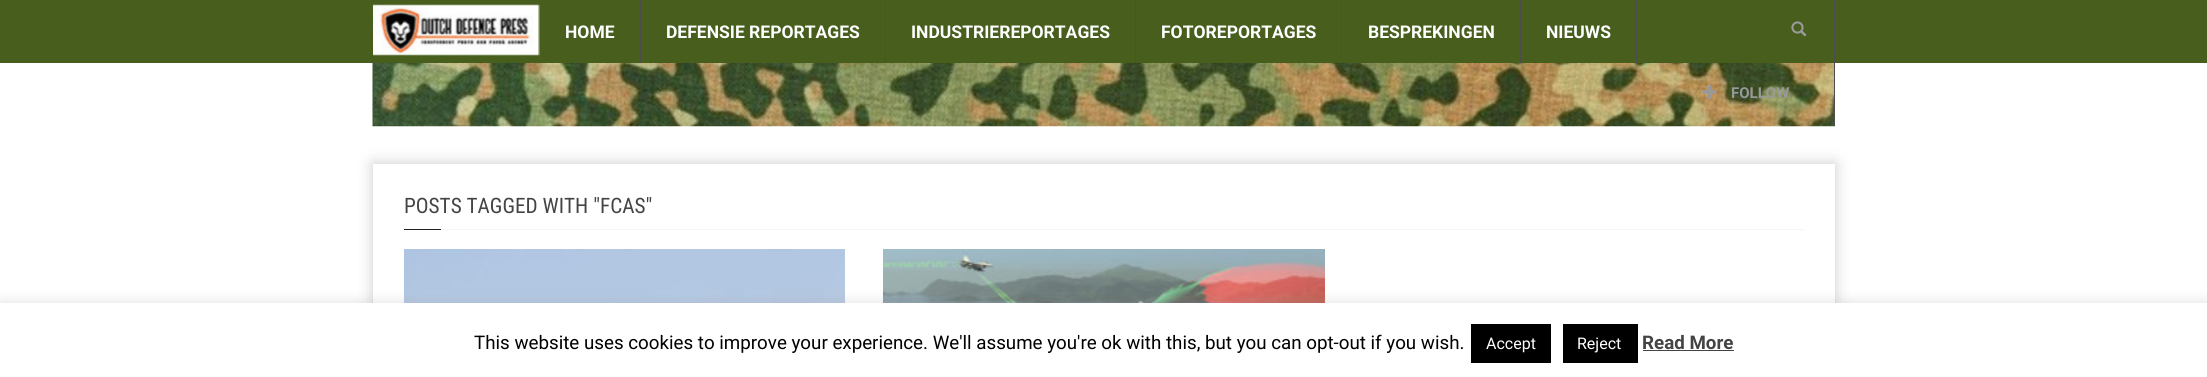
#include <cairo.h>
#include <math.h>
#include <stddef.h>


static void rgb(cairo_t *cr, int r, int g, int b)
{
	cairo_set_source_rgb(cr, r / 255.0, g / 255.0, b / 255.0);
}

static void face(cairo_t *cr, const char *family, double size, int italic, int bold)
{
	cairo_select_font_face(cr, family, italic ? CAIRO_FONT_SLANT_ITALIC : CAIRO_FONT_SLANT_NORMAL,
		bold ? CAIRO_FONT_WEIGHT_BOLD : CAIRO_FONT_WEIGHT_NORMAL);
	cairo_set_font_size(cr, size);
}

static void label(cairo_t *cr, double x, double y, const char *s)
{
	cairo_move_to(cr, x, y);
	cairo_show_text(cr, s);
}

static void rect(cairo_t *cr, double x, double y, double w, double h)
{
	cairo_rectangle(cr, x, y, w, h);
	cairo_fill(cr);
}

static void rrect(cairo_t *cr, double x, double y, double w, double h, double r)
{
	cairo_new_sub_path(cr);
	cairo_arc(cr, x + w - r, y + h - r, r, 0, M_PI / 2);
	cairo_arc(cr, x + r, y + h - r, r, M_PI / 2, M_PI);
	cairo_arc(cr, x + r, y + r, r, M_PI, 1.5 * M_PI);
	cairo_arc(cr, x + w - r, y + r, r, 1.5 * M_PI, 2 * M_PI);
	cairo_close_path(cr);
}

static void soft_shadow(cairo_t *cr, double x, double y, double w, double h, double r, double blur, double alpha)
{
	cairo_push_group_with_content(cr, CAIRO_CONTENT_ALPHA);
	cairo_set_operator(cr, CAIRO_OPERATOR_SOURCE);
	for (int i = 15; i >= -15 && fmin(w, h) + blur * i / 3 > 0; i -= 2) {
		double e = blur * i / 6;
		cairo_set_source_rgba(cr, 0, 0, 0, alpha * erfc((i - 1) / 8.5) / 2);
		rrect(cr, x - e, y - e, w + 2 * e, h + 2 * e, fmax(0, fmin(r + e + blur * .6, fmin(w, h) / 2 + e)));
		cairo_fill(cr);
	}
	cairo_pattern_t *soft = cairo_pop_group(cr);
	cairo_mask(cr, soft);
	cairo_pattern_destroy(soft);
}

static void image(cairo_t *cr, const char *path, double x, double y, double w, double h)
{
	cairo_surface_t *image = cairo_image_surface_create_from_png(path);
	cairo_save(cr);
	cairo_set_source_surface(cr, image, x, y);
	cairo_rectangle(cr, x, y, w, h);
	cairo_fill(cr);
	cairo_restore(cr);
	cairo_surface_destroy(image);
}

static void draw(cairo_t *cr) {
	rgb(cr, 255, 255, 255);
	cairo_paint(cr);
	rgb(cr, 71, 94, 29);
	rect(cr, 0, 0, 2207, 63);
	image(cr, "image3.png", 372, 63, 1463, 64);
	rgb(cr, 77, 77, 77);
	rect(cr, 373, 0, 1, 125);
	image(cr, "image0.png", 373, 4, 167, 52);
	rect(cr, 640, 0, 1, 63);
	face(cr, "Roboto", 17.5, 0, 1);
	rgb(cr, 255, 255, 255);
	label(cr, 565, 38, "HOME");
	rgb(cr, 77, 77, 77);
	rect(cr, 885, 0, 1, 63);
	rgb(cr, 255, 255, 255);
	label(cr, 666, 38, "DEFENSIE REPORTAGES");
	rgb(cr, 77, 77, 77);
	rect(cr, 1135, 0, 1, 63);
	rgb(cr, 255, 255, 255);
	label(cr, 911, 38, "INDUSTRIEREPORTAGES");
	rgb(cr, 77, 77, 77);
	rect(cr, 1341, 0, 1, 63);
	rgb(cr, 255, 255, 255);
	label(cr, 1161, 38, "FOTOREPORTAGES");
	rgb(cr, 77, 77, 77);
	rect(cr, 1520, 0, 1, 63);
	rgb(cr, 255, 255, 255);
	label(cr, 1368, 38, "BESPREKINGEN");
	rgb(cr, 77, 77, 77);
	rect(cr, 1636, 0, 1, 63);
	rgb(cr, 255, 255, 255);
	label(cr, 1546, 38, "NIEUWS");
	rgb(cr, 77, 77, 77);
	rect(cr, 1834, 0, 1, 125);
	image(cr, "image1.png", 1791, 21, 16, 16);
	image(cr, "image2.png", 1702, 85, 15, 14);
	face(cr, "Roboto", 15, 0, 1);
	rgb(cr, 153, 153, 153);
	label(cr, 1731, 98, "FOLLOW");
	cairo_save(cr);
	cairo_set_fill_rule(cr, CAIRO_FILL_RULE_EVEN_ODD);
	cairo_new_path(cr);
	cairo_move_to(cr, 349, 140);
	cairo_line_to(cr, 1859, 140);
	cairo_line_to(cr, 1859, 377);
	cairo_line_to(cr, 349, 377);
	cairo_close_path(cr);
	cairo_move_to(cr, 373, 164);
	cairo_line_to(cr, 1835, 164);
	cairo_line_to(cr, 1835, 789);
	cairo_line_to(cr, 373, 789);
	cairo_close_path(cr);
	cairo_clip(cr);
	rgb(cr, 204, 204, 204);
	soft_shadow(cr, 373, 164, 1462, 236, 0, 7.5, 1);
	cairo_restore(cr);
	rgb(cr, 245, 245, 245);
	rect(cr, 441, 229, 1363, 1);
	face(cr, "Roboto Condensed", 21.25, 0, 0);
	rgb(cr, 68, 68, 68);
	label(cr, 404, 213, "POSTS TAGGED WITH \"FCAS\"");
	rgb(cr, 34, 34, 34);
	rect(cr, 404, 229, 37, 1);
	image(cr, "image4.png", 404, 249, 441, 54);
	image(cr, "image5.png", 883, 249, 442, 54);
	rgb(cr, 172, 171, 171);
	soft_shadow(cr, 0, 301, 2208, 75, 0, 6, 0.3);
	rgb(cr, 255, 255, 255);
	rect(cr, 0, 303, 2207, 74);
	face(cr, "Roboto", 18.75, 0, 0);
	rgb(cr, 0, 0, 0);
	label(cr, 474, 349, "This website uses cookies to improve your experience. We'll assume you're ok with this, but you can opt-out if you wish.");
	rect(cr, 1471, 324, 80, 39);
	face(cr, "Roboto", 16, 0, 0);
	rgb(cr, 255, 255, 255);
	label(cr, 1486, 349, "Accept");
	rgb(cr, 0, 0, 0);
	rect(cr, 1563, 324, 75, 39);
	rgb(cr, 255, 255, 255);
	label(cr, 1577, 349, "Reject");
	face(cr, "Roboto", 18.75, 0, 1);
	rgb(cr, 68, 68, 68);
	label(cr, 1642, 349, "Read More");
	rect(cr, 1643, 350, 91, 1);
}

int main(void) {
	cairo_surface_t *surface = cairo_image_surface_create(CAIRO_FORMAT_RGB24, 2207, 377);
	cairo_t *cr = cairo_create(surface);
	cairo_font_options_t *options = cairo_font_options_create();
	cairo_font_options_set_hint_metrics(options, CAIRO_HINT_METRICS_OFF);
	cairo_font_options_set_hint_style(options, CAIRO_HINT_STYLE_NONE);
	cairo_set_font_options(cr, options);
	cairo_set_miter_limit(cr, 4);
	draw(cr);
	cairo_surface_write_to_png(surface, "render.png");
	cairo_font_options_destroy(options);
	cairo_destroy(cr);
	cairo_surface_destroy(surface);
	return 0;
}
